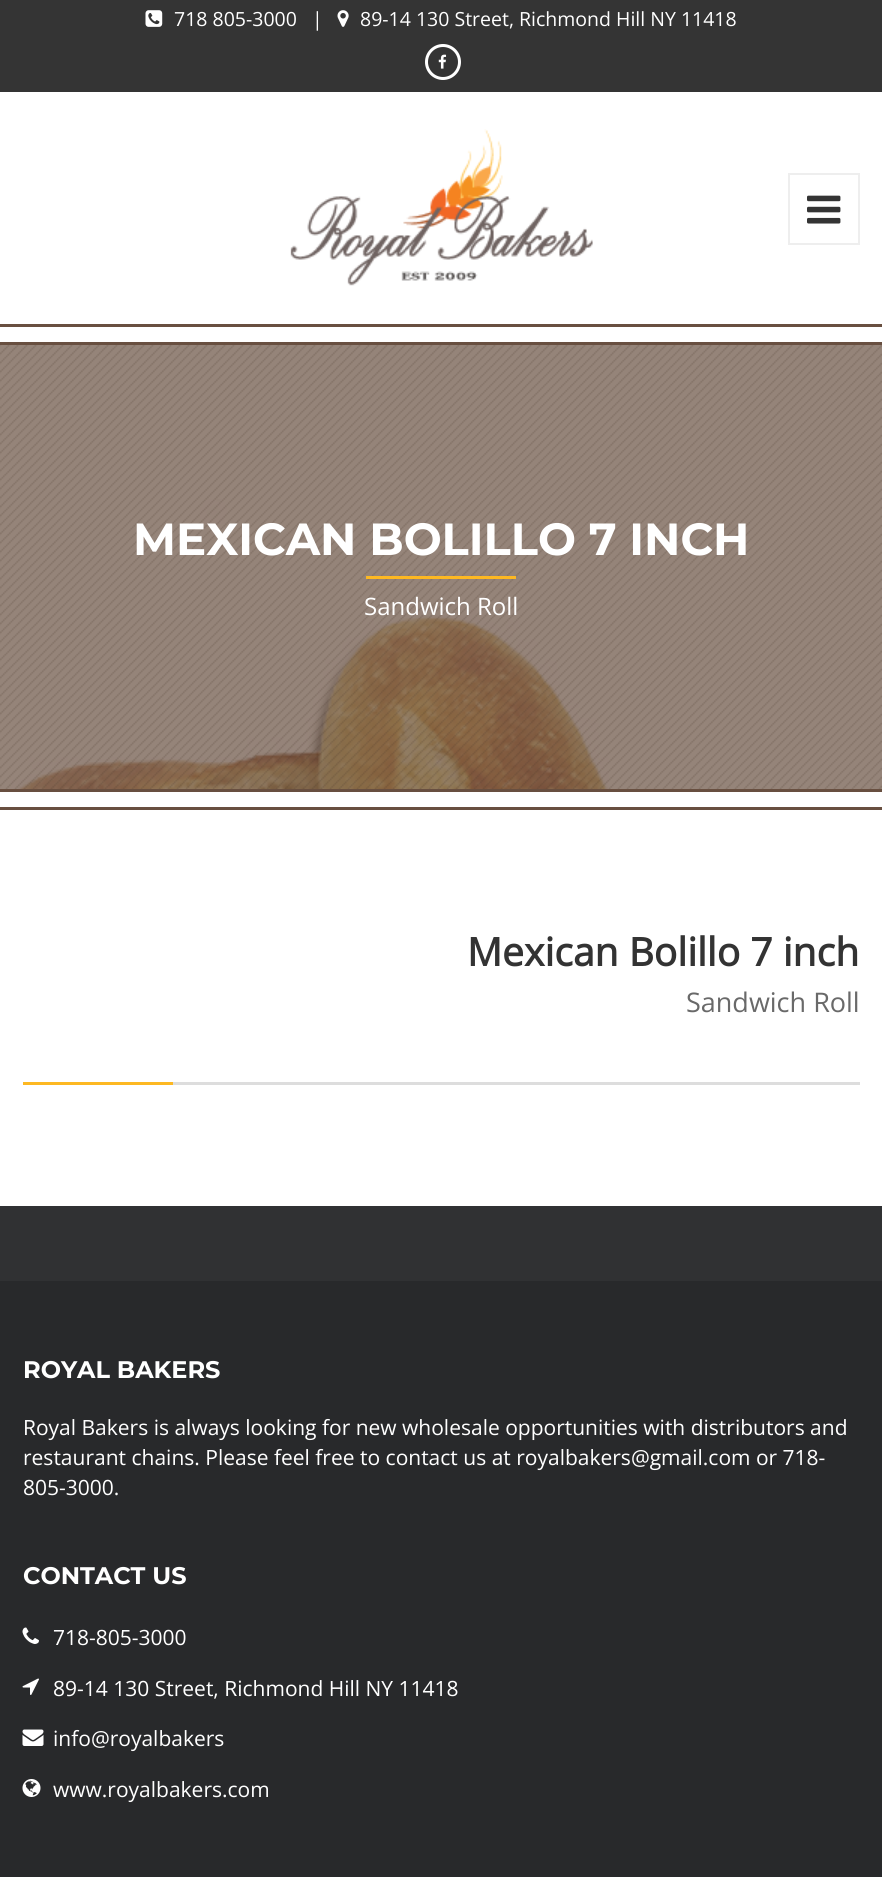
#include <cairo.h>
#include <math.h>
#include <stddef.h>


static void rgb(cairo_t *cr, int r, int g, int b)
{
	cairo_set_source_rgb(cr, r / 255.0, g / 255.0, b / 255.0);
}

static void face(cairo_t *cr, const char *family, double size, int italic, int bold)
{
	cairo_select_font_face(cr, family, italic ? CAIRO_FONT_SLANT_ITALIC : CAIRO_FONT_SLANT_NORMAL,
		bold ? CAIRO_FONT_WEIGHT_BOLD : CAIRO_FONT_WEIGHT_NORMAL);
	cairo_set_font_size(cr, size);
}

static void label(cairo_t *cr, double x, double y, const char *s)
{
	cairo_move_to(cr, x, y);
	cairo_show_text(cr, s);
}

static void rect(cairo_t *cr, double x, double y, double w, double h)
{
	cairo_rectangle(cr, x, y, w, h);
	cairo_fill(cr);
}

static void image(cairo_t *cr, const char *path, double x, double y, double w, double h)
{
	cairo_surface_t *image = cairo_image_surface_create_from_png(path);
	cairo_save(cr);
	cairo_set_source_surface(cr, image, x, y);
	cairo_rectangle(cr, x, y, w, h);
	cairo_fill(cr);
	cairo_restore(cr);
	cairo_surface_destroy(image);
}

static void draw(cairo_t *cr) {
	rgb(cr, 255, 255, 255);
	cairo_paint(cr);
	rgb(cr, 149, 132, 121);
	rect(cr, 0, 345, 882, 444);
	rgb(cr, 52, 52, 52);
	rect(cr, 0, 0, 882, 92);
	image(cr, "image0.png", 145, 10, 18, 17);
	face(cr, "Open Sans", 19.5, 0, 0);
	rgb(cr, 255, 255, 255);
	label(cr, 174, 26, "718 805-3000");
	label(cr, 312, 26, "|");
	image(cr, "image1.png", 337, 10, 12, 17);
	label(cr, 360, 26, "89-14 130 Street, Richmond Hill NY 11418");
	cairo_new_path(cr);
	cairo_arc(cr, 443, 62, 16.5, 0, 2 * M_PI);
	cairo_set_line_width(cr, 3);
	cairo_stroke(cr);
	image(cr, "image2.png", 438, 54, 9, 15);
	image(cr, "image3.png", 290, 129, 303, 157);
	cairo_rectangle(cr, 789, 174, 70, 70);
	rgb(cr, 238, 238, 238);
	cairo_set_line_width(cr, 2);
	cairo_stroke(cr);
	image(cr, "image4.png", 807, 195, 34, 29);
	rgb(cr, 104, 79, 64);
	rect(cr, 0, 324, 882, 3);
	image(cr, "image5.png", 11, 499, 598, 290);
	rect(cr, 0, 342, 882, 3);
	rect(cr, 0, 789, 882, 3);
	image(cr, "image6.png", 0, 345, 882, 444);
	face(cr, "Montserrat", 45, 0, 1);
	rgb(cr, 255, 255, 255);
	label(cr, 133, 555, "MEXICAN BOLILLO 7 INCH");
	rgb(cr, 253, 184, 34);
	rect(cr, 366, 576, 150, 3);
	face(cr, "Open Sans", 24, 0, 0);
	rgb(cr, 255, 255, 255);
	label(cr, 364, 615, "Sandwich Roll");
	rgb(cr, 104, 79, 64);
	rect(cr, 0, 807, 882, 3);
	face(cr, "Open Sans", 39, 0, 1);
	rgb(cr, 51, 51, 51);
	label(cr, 467, 966, "Mexican Bolillo 7 inch");
	face(cr, "Open Sans", 27, 0, 0);
	rgb(cr, 105, 105, 105);
	label(cr, 686, 1012, "Sandwich Roll");
	rgb(cr, 253, 184, 34);
	rect(cr, 23, 1082, 150, 3);
	rgb(cr, 221, 221, 221);
	rect(cr, 173, 1082, 687, 3);
	rgb(cr, 48, 49, 51);
	rect(cr, 0, 1206, 882, 75);
	rgb(cr, 40, 41, 43);
	rect(cr, 0, 1281, 882, 596);
	face(cr, "Montserrat", 24, 0, 1);
	rgb(cr, 255, 255, 255);
	label(cr, 23, 1378, "ROYAL BAKERS");
	face(cr, "Open Sans", 21, 0, 0);
	label(cr, 23, 1435, "Royal Bakers is always looking for new wholesale opportunities with distributors and");
	label(cr, 23, 1465, "restaurant chains. Please feel free to contact us at royalbakers@gmail.com or 718-");
	label(cr, 23, 1495, "805-3000.");
	face(cr, "Montserrat", 24, 0, 1);
	label(cr, 23, 1584, "CONTACT US");
	image(cr, "image7.png", 22, 1627, 17, 17);
	face(cr, "Open Sans", 21, 0, 0);
	label(cr, 53, 1645, "718-805-3000");
	image(cr, "image8.png", 22, 1678, 17, 17);
	label(cr, 53, 1696, "89-14 130 Street, Richmond Hill NY 11418");
	image(cr, "image9.png", 22, 1729, 22, 17);
	label(cr, 53, 1746, "info@royalbakers");
	image(cr, "image10.png", 22, 1779, 19, 18);
	label(cr, 53, 1797, "www.royalbakers.com");
}

int main(void) {
	cairo_surface_t *surface = cairo_image_surface_create(CAIRO_FORMAT_RGB24, 882, 1877);
	cairo_t *cr = cairo_create(surface);
	cairo_font_options_t *options = cairo_font_options_create();
	cairo_font_options_set_hint_metrics(options, CAIRO_HINT_METRICS_OFF);
	cairo_font_options_set_hint_style(options, CAIRO_HINT_STYLE_NONE);
	cairo_set_font_options(cr, options);
	cairo_set_miter_limit(cr, 4);
	draw(cr);
	cairo_surface_write_to_png(surface, "render.png");
	cairo_font_options_destroy(options);
	cairo_destroy(cr);
	cairo_surface_destroy(surface);
	return 0;
}
